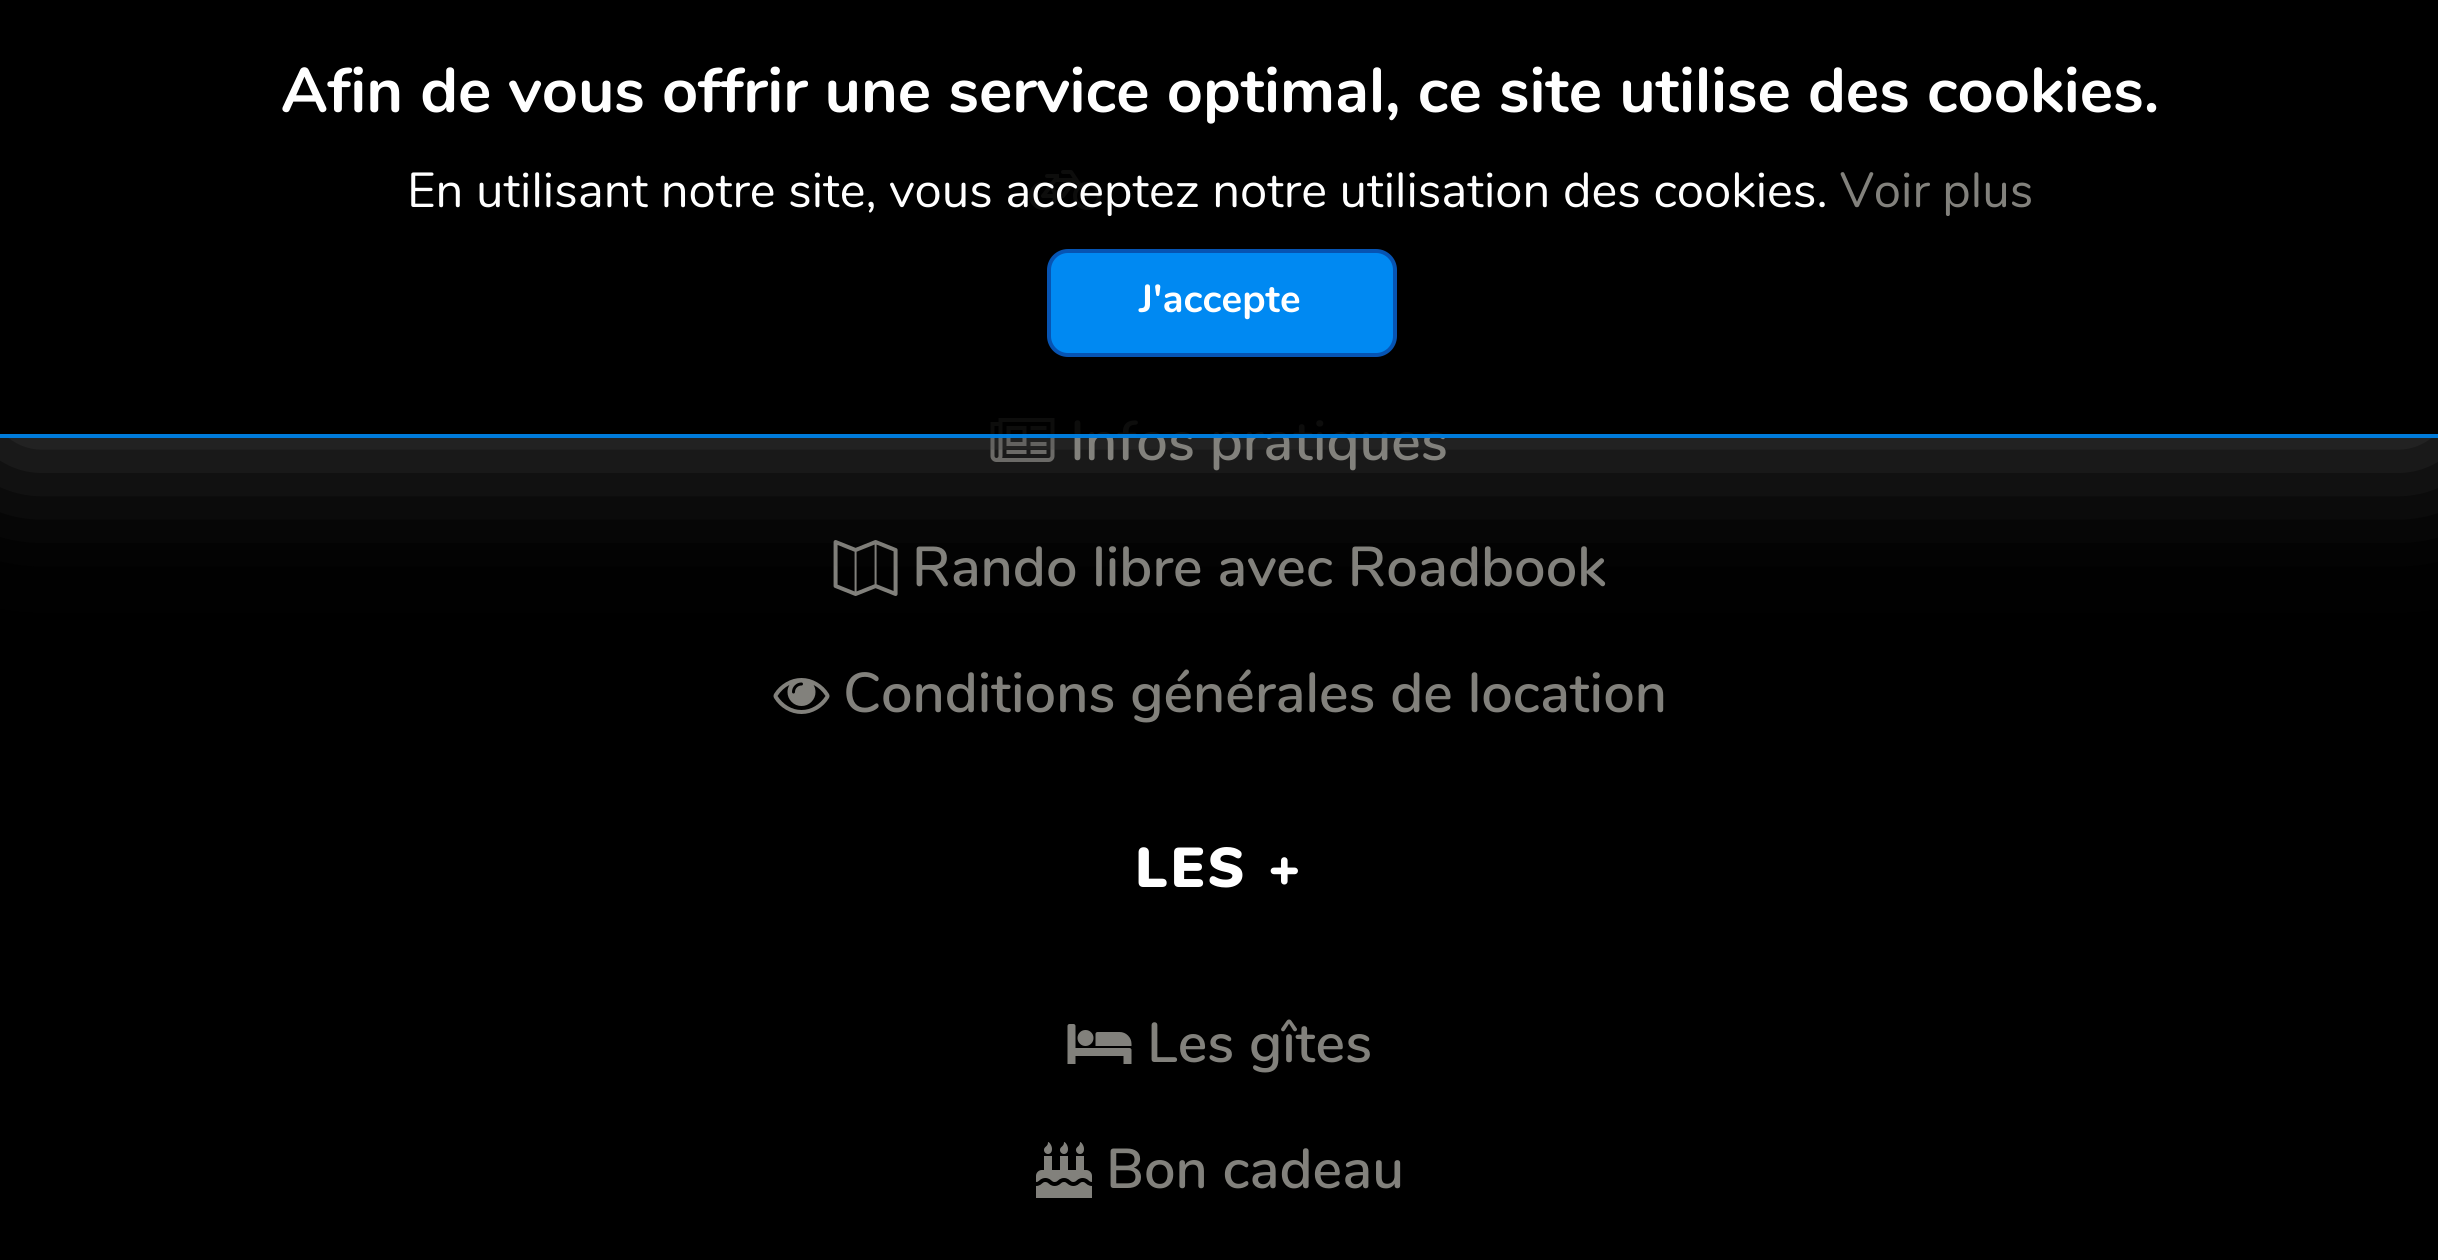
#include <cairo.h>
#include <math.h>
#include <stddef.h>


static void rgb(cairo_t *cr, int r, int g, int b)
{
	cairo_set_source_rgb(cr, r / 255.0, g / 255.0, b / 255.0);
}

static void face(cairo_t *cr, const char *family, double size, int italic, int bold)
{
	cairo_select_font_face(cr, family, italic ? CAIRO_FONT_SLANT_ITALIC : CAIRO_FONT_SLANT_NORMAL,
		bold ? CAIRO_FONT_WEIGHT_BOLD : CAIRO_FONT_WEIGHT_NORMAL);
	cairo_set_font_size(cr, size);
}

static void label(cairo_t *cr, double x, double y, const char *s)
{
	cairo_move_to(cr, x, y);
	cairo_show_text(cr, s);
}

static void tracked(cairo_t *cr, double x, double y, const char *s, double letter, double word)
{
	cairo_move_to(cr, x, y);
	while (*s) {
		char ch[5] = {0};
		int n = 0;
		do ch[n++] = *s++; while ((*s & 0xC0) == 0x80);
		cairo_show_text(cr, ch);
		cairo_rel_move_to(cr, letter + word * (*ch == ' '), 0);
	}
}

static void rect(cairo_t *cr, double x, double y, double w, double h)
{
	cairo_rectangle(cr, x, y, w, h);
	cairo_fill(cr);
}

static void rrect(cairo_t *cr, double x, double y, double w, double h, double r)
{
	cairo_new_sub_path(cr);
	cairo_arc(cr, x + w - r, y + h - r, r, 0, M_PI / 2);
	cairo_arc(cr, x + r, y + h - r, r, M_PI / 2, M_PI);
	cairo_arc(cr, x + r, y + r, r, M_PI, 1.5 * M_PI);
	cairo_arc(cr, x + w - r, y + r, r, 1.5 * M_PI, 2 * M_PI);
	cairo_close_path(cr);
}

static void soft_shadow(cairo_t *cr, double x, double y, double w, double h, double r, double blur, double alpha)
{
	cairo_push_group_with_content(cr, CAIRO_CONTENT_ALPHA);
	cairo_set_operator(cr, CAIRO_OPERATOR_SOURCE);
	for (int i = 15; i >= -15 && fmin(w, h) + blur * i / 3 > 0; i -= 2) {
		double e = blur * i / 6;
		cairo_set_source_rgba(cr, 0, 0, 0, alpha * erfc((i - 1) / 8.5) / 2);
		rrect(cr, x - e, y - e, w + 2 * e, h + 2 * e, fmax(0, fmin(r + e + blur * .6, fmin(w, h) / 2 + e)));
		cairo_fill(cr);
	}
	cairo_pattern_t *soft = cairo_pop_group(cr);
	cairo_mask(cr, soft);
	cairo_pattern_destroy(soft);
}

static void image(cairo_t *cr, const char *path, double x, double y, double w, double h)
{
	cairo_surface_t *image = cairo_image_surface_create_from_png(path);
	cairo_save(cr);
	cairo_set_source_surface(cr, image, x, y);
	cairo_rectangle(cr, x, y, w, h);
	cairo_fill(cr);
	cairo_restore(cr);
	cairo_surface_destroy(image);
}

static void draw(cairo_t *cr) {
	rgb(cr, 0, 0, 0);
	cairo_paint(cr);
	image(cr, "image0.png", 1029, 170, 72, 40);
	image(cr, "image1.png", 990, 418, 65, 44);
	image(cr, "image2.png", 833, 540, 65, 56);
	cairo_save(cr);
	cairo_set_fill_rule(cr, CAIRO_FILL_RULE_EVEN_ODD);
	cairo_new_path(cr);
	cairo_move_to(cr, 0, 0);
	cairo_line_to(cr, 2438, 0);
	cairo_line_to(cr, 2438, 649);
	cairo_line_to(cr, 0, 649);
	cairo_close_path(cr);
	cairo_move_to(cr, 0, 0);
	cairo_line_to(cr, 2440, 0);
	cairo_line_to(cr, 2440, 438);
	cairo_line_to(cr, 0, 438);
	cairo_close_path(cr);
	cairo_clip(cr);
	rgb(cr, 68, 68, 68);
	soft_shadow(cr, 0, 0, 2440, 438, 0, 70, 1);
	cairo_restore(cr);
	face(cr, "Nunito", 63, 0, 1);
	rgb(cr, 255, 255, 255);
	label(cr, 281, 112, "Afin de vous offrir une service optimal, ce site utilise des cookies.");
	face(cr, "Nunito SemiBold", 56, 0, 0);
	rgb(cr, 130, 129, 124);
	label(cr, 1070, 460, "Infos pratiques");
	cairo_set_source_rgba(cr, 0, 0, 0, 0.9);
	rect(cr, 0, 170, 2438, 268);
	cairo_set_source_rgba(cr, 0, 0.537, 0.949, 0.9);
	rect(cr, 0, 434, 2438, 4);
	face(cr, "Nunito", 49, 0, 0);
	rgb(cr, 255, 255, 255);
	label(cr, 407, 207, "En utilisant notre site, vous acceptez notre utilisation des cookies.");
	rgb(cr, 130, 129, 124);
	label(cr, 1840, 207, "Voir plus");
	rgb(cr, 0, 137, 242);
	rrect(cr, 1049, 251, 346, 104, 19);
	cairo_fill_preserve(cr);
	rgb(cr, 6, 84, 179);
	cairo_set_line_width(cr, 4);
	cairo_stroke(cr);
	face(cr, "Nunito", 39, 0, 1);
	rgb(cr, 255, 255, 255);
	label(cr, 1139, 312, "J'accepte");
	face(cr, "Nunito SemiBold", 56, 0, 0);
	rgb(cr, 130, 129, 124);
	label(cr, 912, 586, "Rando libre avec Roadbook");
	image(cr, "image3.png", 773, 678, 57, 36);
	label(cr, 843, 712, "Conditions générales de location");
	face(cr, "Nunito Black", 56, 0, 0);
	rgb(cr, 255, 255, 255);
	tracked(cr, 1135, 887, "LES +", 3.5, 0);
	image(cr, "image4.png", 1067, 1024, 65, 40);
	face(cr, "Nunito SemiBold", 56, 0, 0);
	rgb(cr, 130, 129, 124);
	label(cr, 1147, 1062, "Les gîtes");
	image(cr, "image5.png", 1036, 1142, 56, 56);
	label(cr, 1106, 1188, "Bon cadeau");
}

int main(void) {
	cairo_surface_t *surface = cairo_image_surface_create(CAIRO_FORMAT_RGB24, 2438, 1260);
	cairo_t *cr = cairo_create(surface);
	cairo_font_options_t *options = cairo_font_options_create();
	cairo_font_options_set_hint_metrics(options, CAIRO_HINT_METRICS_OFF);
	cairo_font_options_set_hint_style(options, CAIRO_HINT_STYLE_NONE);
	cairo_set_font_options(cr, options);
	cairo_set_miter_limit(cr, 4);
	draw(cr);
	cairo_surface_write_to_png(surface, "render.png");
	cairo_font_options_destroy(options);
	cairo_destroy(cr);
	cairo_surface_destroy(surface);
	return 0;
}
